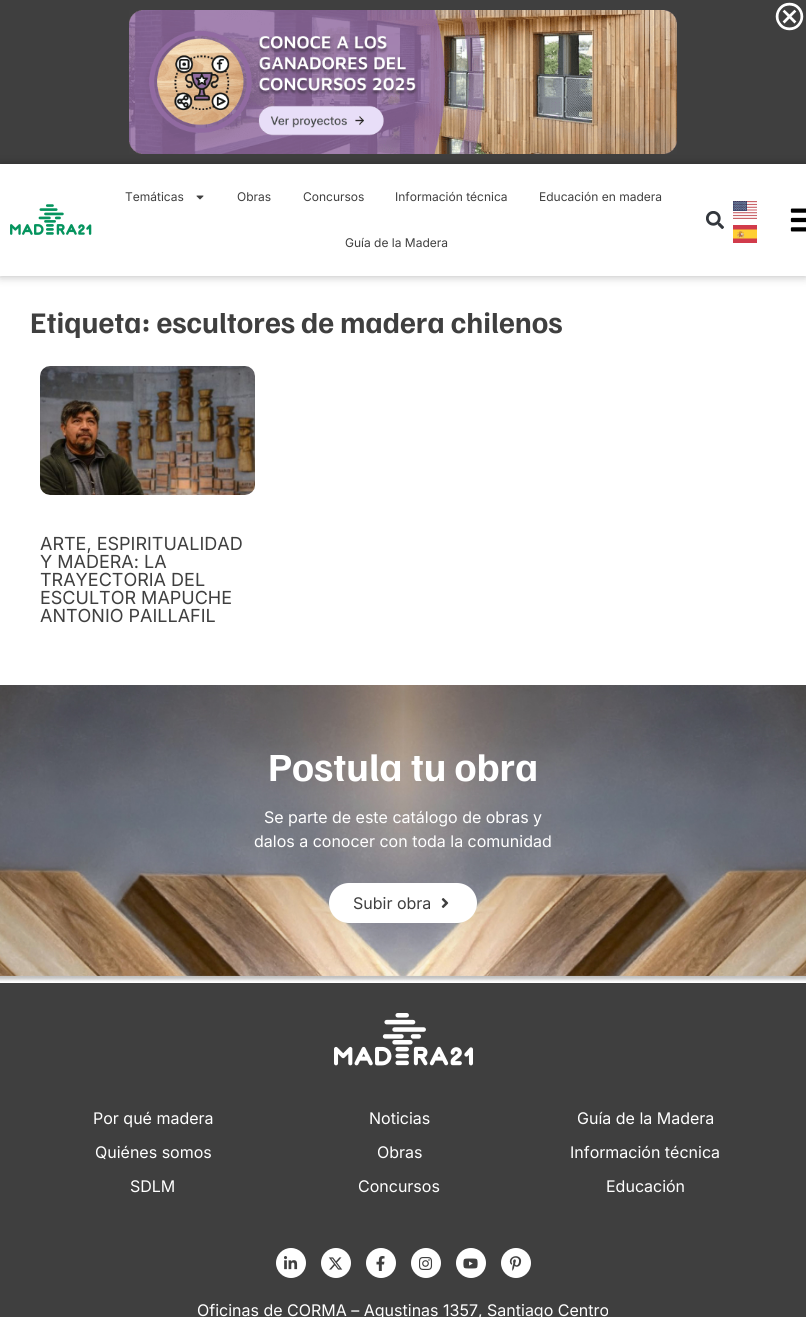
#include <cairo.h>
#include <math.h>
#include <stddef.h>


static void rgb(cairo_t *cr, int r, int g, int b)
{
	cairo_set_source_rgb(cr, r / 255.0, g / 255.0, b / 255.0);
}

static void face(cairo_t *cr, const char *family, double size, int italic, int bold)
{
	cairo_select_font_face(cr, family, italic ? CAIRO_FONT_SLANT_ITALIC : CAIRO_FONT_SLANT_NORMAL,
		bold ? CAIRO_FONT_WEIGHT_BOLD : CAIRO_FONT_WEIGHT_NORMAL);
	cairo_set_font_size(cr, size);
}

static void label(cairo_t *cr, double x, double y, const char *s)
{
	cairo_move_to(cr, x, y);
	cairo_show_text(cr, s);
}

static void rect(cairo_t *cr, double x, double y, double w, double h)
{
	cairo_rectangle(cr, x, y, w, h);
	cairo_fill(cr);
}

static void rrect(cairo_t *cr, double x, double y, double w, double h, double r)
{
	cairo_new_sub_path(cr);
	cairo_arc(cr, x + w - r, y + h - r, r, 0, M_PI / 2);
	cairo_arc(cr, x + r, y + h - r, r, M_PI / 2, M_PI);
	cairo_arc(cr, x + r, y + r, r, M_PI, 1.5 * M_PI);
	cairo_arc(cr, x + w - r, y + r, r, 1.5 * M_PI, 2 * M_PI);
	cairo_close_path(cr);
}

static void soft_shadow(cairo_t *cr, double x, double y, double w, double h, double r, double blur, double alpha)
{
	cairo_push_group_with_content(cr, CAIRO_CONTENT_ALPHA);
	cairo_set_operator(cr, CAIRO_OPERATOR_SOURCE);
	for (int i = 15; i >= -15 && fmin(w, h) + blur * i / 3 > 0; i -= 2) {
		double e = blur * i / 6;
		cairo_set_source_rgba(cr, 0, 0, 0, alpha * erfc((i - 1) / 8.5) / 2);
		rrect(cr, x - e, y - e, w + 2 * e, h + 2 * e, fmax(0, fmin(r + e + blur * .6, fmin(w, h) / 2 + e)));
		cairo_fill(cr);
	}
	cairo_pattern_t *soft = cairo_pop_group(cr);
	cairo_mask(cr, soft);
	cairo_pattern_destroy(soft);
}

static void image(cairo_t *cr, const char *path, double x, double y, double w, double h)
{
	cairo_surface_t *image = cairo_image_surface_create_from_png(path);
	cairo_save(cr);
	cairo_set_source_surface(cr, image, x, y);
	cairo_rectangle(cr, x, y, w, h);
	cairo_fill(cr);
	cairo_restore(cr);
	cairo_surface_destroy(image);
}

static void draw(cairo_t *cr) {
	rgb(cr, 255, 255, 255);
	cairo_paint(cr);
	rgb(cr, 63, 63, 63);
	rect(cr, 0, 0, 806, 164);
	image(cr, "image0.png", 129, 10, 548, 144);
	image(cr, "image1.png", 775, 2, 29, 29);
	cairo_save(cr);
	cairo_set_fill_rule(cr, CAIRO_FILL_RULE_EVEN_ODD);
	cairo_new_path(cr);
	cairo_move_to(cr, 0, 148);
	cairo_line_to(cr, 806, 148);
	cairo_line_to(cr, 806, 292);
	cairo_line_to(cr, 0, 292);
	cairo_close_path(cr);
	cairo_move_to(cr, 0, 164);
	cairo_line_to(cr, 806, 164);
	cairo_line_to(cr, 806, 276);
	cairo_line_to(cr, 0, 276);
	cairo_close_path(cr);
	cairo_clip(cr);
	rgb(cr, 0, 0, 0);
	soft_shadow(cr, 0, 164, 806, 112, 0, 5, 0.29);
	cairo_restore(cr);
	image(cr, "image2.png", 10, 204, 82, 31);
	face(cr, "Inter", 12, 0, 0);
	label(cr, 125, 201, "Temáticas");
	image(cr, "image3.png", 196, 195, 8, 5);
	label(cr, 237, 201, "Obras");
	label(cr, 303, 201, "Concursos");
	label(cr, 395, 201, "Información técnica");
	label(cr, 539, 201, "Educación en madera");
	label(cr, 345, 247, "Guía de la Madera");
	image(cr, "image4.png", 706, 211, 18, 18);
	image(cr, "image5.png", 733, 201, 24, 18);
	image(cr, "image6.png", 733, 225, 24, 18);
	image(cr, "image7.png", 790, 208, 16, 24);
	face(cr, "Familjen Grotesk", 30, 0, 1);
	label(cr, 30, 333, "Etiqueta: escultores de madera chilenos");
	image(cr, "image8.png", 40, 366, 215, 129);
	face(cr, "Inter", 18, 0, 0);
	label(cr, 40, 550, "ARTE, ESPIRITUALIDAD");
	label(cr, 40, 568, "Y MADERA: LA");
	label(cr, 40, 586, "TRAYECTORIA DEL");
	label(cr, 40, 604, "ESCULTOR MAPUCHE");
	label(cr, 40, 622, "ANTONIO PAILLAFIL");
	image(cr, "image9.png", 0, 685, 806, 297);
	face(cr, "Familjen Grotesk", 40, 0, 1);
	rgb(cr, 255, 255, 255);
	label(cr, 268, 781, "Postula tu obra");
	face(cr, "Inter", 16, 0, 0);
	label(cr, 264, 823, "Se parte de este catálogo de obras y");
	label(cr, 254, 847, "dalos a conocer con toda la comunidad");
	rrect(cr, 329, 883, 148, 40, 20);
	cairo_fill(cr);
	rgb(cr, 63, 63, 63);
	label(cr, 353, 909, "Subir obra");
	image(cr, "image10.png", 441, 898, 8, 10);
	rect(cr, 0, 983, 806, 334);
	image(cr, "image11.png", 334, 1013, 139, 53);
	rgb(cr, 255, 255, 255);
	label(cr, 93, 1124, "Por qué madera");
	label(cr, 95, 1158, "Quiénes somos");
	label(cr, 130, 1192, "SDLM");
	label(cr, 369, 1124, "Noticias");
	label(cr, 377, 1158, "Obras");
	label(cr, 358, 1192, "Concursos");
	label(cr, 577, 1124, "Guía de la Madera");
	label(cr, 570, 1158, "Información técnica");
	label(cr, 606, 1192, "Educación");
	cairo_new_path(cr);
	cairo_arc(cr, 291, 1263, 15, 0, 2 * M_PI);
	cairo_fill(cr);
	image(cr, "image12.png", 284, 1256, 14, 14);
	cairo_arc(cr, 336, 1263, 15, 0, 2 * M_PI);
	cairo_fill(cr);
	image(cr, "image13.png", 328, 1257, 15, 13);
	cairo_arc(cr, 381, 1263, 15, 0, 2 * M_PI);
	cairo_fill(cr);
	image(cr, "image14.png", 376, 1256, 9, 15);
	cairo_arc(cr, 426, 1263, 15, 0, 2 * M_PI);
	cairo_fill(cr);
	image(cr, "image15.png", 419, 1257, 14, 13);
	cairo_arc(cr, 471, 1263, 15, 0, 2 * M_PI);
	cairo_fill(cr);
	image(cr, "image16.png", 463, 1258, 15, 11);
	cairo_arc(cr, 516, 1263, 15, 0, 2 * M_PI);
	cairo_fill(cr);
	image(cr, "image17.png", 509, 1256, 13, 15);
	label(cr, 197, 1316, "Oficinas de CORMA – Agustinas 1357, Santiago Centro");
}

int main(void) {
	cairo_surface_t *surface = cairo_image_surface_create(CAIRO_FORMAT_RGB24, 806, 1317);
	cairo_t *cr = cairo_create(surface);
	cairo_font_options_t *options = cairo_font_options_create();
	cairo_font_options_set_hint_metrics(options, CAIRO_HINT_METRICS_OFF);
	cairo_font_options_set_hint_style(options, CAIRO_HINT_STYLE_NONE);
	cairo_set_font_options(cr, options);
	cairo_set_miter_limit(cr, 4);
	draw(cr);
	cairo_surface_write_to_png(surface, "render.png");
	cairo_font_options_destroy(options);
	cairo_destroy(cr);
	cairo_surface_destroy(surface);
	return 0;
}
